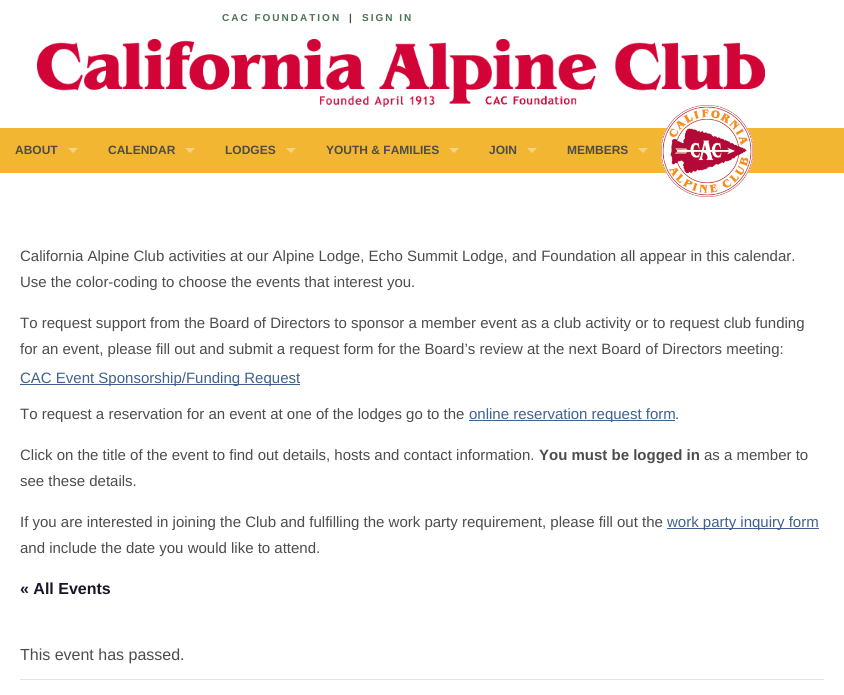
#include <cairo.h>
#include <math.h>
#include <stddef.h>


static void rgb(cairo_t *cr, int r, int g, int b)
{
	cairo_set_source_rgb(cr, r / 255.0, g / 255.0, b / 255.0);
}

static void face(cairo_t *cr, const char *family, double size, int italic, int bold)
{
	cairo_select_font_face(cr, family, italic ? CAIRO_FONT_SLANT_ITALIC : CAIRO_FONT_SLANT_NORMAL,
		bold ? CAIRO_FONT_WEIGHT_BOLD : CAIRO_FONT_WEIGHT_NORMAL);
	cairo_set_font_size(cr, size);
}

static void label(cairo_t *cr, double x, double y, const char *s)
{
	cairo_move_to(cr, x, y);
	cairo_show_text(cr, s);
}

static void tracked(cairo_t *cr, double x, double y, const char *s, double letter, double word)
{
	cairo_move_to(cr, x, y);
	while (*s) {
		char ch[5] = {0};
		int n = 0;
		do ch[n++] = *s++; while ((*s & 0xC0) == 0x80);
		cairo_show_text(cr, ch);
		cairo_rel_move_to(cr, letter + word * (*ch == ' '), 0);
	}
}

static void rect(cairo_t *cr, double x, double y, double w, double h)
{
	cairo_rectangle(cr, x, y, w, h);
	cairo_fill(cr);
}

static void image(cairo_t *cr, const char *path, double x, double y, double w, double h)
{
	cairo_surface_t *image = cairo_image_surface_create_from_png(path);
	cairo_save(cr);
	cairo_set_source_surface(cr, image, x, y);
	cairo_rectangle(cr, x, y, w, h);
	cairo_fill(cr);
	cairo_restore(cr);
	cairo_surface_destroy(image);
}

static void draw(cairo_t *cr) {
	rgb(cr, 255, 255, 255);
	cairo_paint(cr);
	face(cr, "Liberation Sans", 10, 0, 1);
	rgb(cr, 73, 113, 83);
	tracked(cr, 222, 21, "CAC FOUNDATION", 2, 0);
	rgb(cr, 76, 76, 76);
	tracked(cr, 349, 21, "|", 2, 0);
	rgb(cr, 73, 113, 83);
	tracked(cr, 362, 21, "SIGN IN", 2, 0);
	image(cr, "image0.png", 37, 39, 728, 68);
	rgb(cr, 243, 182, 51);
	rect(cr, 0, 128, 844, 45);
	face(cr, "Liberation Sans", 12, 0, 1);
	rgb(cr, 76, 76, 76);
	label(cr, 15, 154, "ABOUT");
	rgb(cr, 248, 211, 133);
	cairo_new_path(cr);
	cairo_move_to(cr, 68, 148);
	cairo_line_to(cr, 78, 148);
	cairo_line_to(cr, 73, 153);
	cairo_close_path(cr);
	cairo_fill(cr);
	rgb(cr, 76, 76, 76);
	label(cr, 108, 154, "CALENDAR");
	rgb(cr, 248, 211, 133);
	cairo_new_path(cr);
	cairo_move_to(cr, 185, 148);
	cairo_line_to(cr, 195, 148);
	cairo_line_to(cr, 190, 153);
	cairo_close_path(cr);
	cairo_fill(cr);
	rgb(cr, 76, 76, 76);
	label(cr, 225, 154, "LODGES");
	rgb(cr, 248, 211, 133);
	cairo_new_path(cr);
	cairo_move_to(cr, 286, 148);
	cairo_line_to(cr, 296, 148);
	cairo_line_to(cr, 291, 153);
	cairo_close_path(cr);
	cairo_fill(cr);
	rgb(cr, 76, 76, 76);
	label(cr, 326, 154, "YOUTH & FAMILIES");
	rgb(cr, 248, 211, 133);
	cairo_new_path(cr);
	cairo_move_to(cr, 449, 148);
	cairo_line_to(cr, 459, 148);
	cairo_line_to(cr, 454, 153);
	cairo_close_path(cr);
	cairo_fill(cr);
	rgb(cr, 76, 76, 76);
	label(cr, 489, 154, "JOIN");
	rgb(cr, 248, 211, 133);
	cairo_new_path(cr);
	cairo_move_to(cr, 527, 148);
	cairo_line_to(cr, 537, 148);
	cairo_line_to(cr, 532, 153);
	cairo_close_path(cr);
	cairo_fill(cr);
	rgb(cr, 76, 76, 76);
	label(cr, 567, 154, "MEMBERS");
	rgb(cr, 248, 211, 133);
	cairo_new_path(cr);
	cairo_move_to(cr, 638, 148);
	cairo_line_to(cr, 648, 148);
	cairo_line_to(cr, 643, 153);
	cairo_close_path(cr);
	cairo_fill(cr);
	image(cr, "image1.png", 661, 105, 92, 92);
	face(cr, "Liberation Sans", 15, 0, 0);
	rgb(cr, 76, 76, 76);
	label(cr, 20, 261, "California Alpine Club activities at our Alpine Lodge, Echo Summit Lodge, and Foundation all appear in this calendar.");
	label(cr, 20, 287, "Use the color-coding to choose the events that interest you.");
	label(cr, 20, 328, "To request support from the Board of Directors to sponsor a member event as a club activity or to request club funding");
	label(cr, 20, 354, "for an event, please fill out and submit a request form for the Board’s review at the next Board of Directors meeting:");
	rgb(cr, 64, 96, 143);
	rect(cr, 20, 384, 280, 1);
	label(cr, 20, 383, "CAC Event Sponsorship/Funding Request");
	rgb(cr, 76, 76, 76);
	label(cr, 20, 419, "To request a reservation for an event at one of the lodges go to the");
	rgb(cr, 64, 96, 143);
	rect(cr, 469, 420, 206, 1);
	label(cr, 469, 419, "online reservation request form");
	rgb(cr, 76, 76, 76);
	label(cr, 675, 419, ".");
	label(cr, 20, 460, "Click on the title of the event to find out details, hosts and contact information.");
	face(cr, "Liberation Sans", 15, 0, 1);
	label(cr, 539, 460, "You must be logged in");
	face(cr, "Liberation Sans", 15, 0, 0);
	label(cr, 704, 460, "as a member to");
	label(cr, 20, 486, "see these details.");
	label(cr, 20, 527, "If you are interested in joining the Club and fulfilling the work party requirement, please fill out the");
	rgb(cr, 64, 96, 143);
	rect(cr, 667, 528, 152, 1);
	label(cr, 667, 527, "work party inquiry form");
	rgb(cr, 76, 76, 76);
	label(cr, 20, 553, "and include the date you would like to attend.");
	face(cr, "Liberation Sans", 16, 0, 1);
	rgb(cr, 20, 24, 39);
	label(cr, 20, 594, "« All Events");
	rgb(cr, 228, 228, 228);
	rect(cr, 20, 679, 804, 1);
	face(cr, "Liberation Sans", 16, 0, 0);
	rgb(cr, 76, 76, 76);
	label(cr, 20, 660, "This event has passed.");
}

int main(void) {
	cairo_surface_t *surface = cairo_image_surface_create(CAIRO_FORMAT_RGB24, 844, 695);
	cairo_t *cr = cairo_create(surface);
	cairo_font_options_t *options = cairo_font_options_create();
	cairo_font_options_set_hint_metrics(options, CAIRO_HINT_METRICS_OFF);
	cairo_font_options_set_hint_style(options, CAIRO_HINT_STYLE_NONE);
	cairo_set_font_options(cr, options);
	cairo_set_miter_limit(cr, 4);
	draw(cr);
	cairo_surface_write_to_png(surface, "render.png");
	cairo_font_options_destroy(options);
	cairo_destroy(cr);
	cairo_surface_destroy(surface);
	return 0;
}
